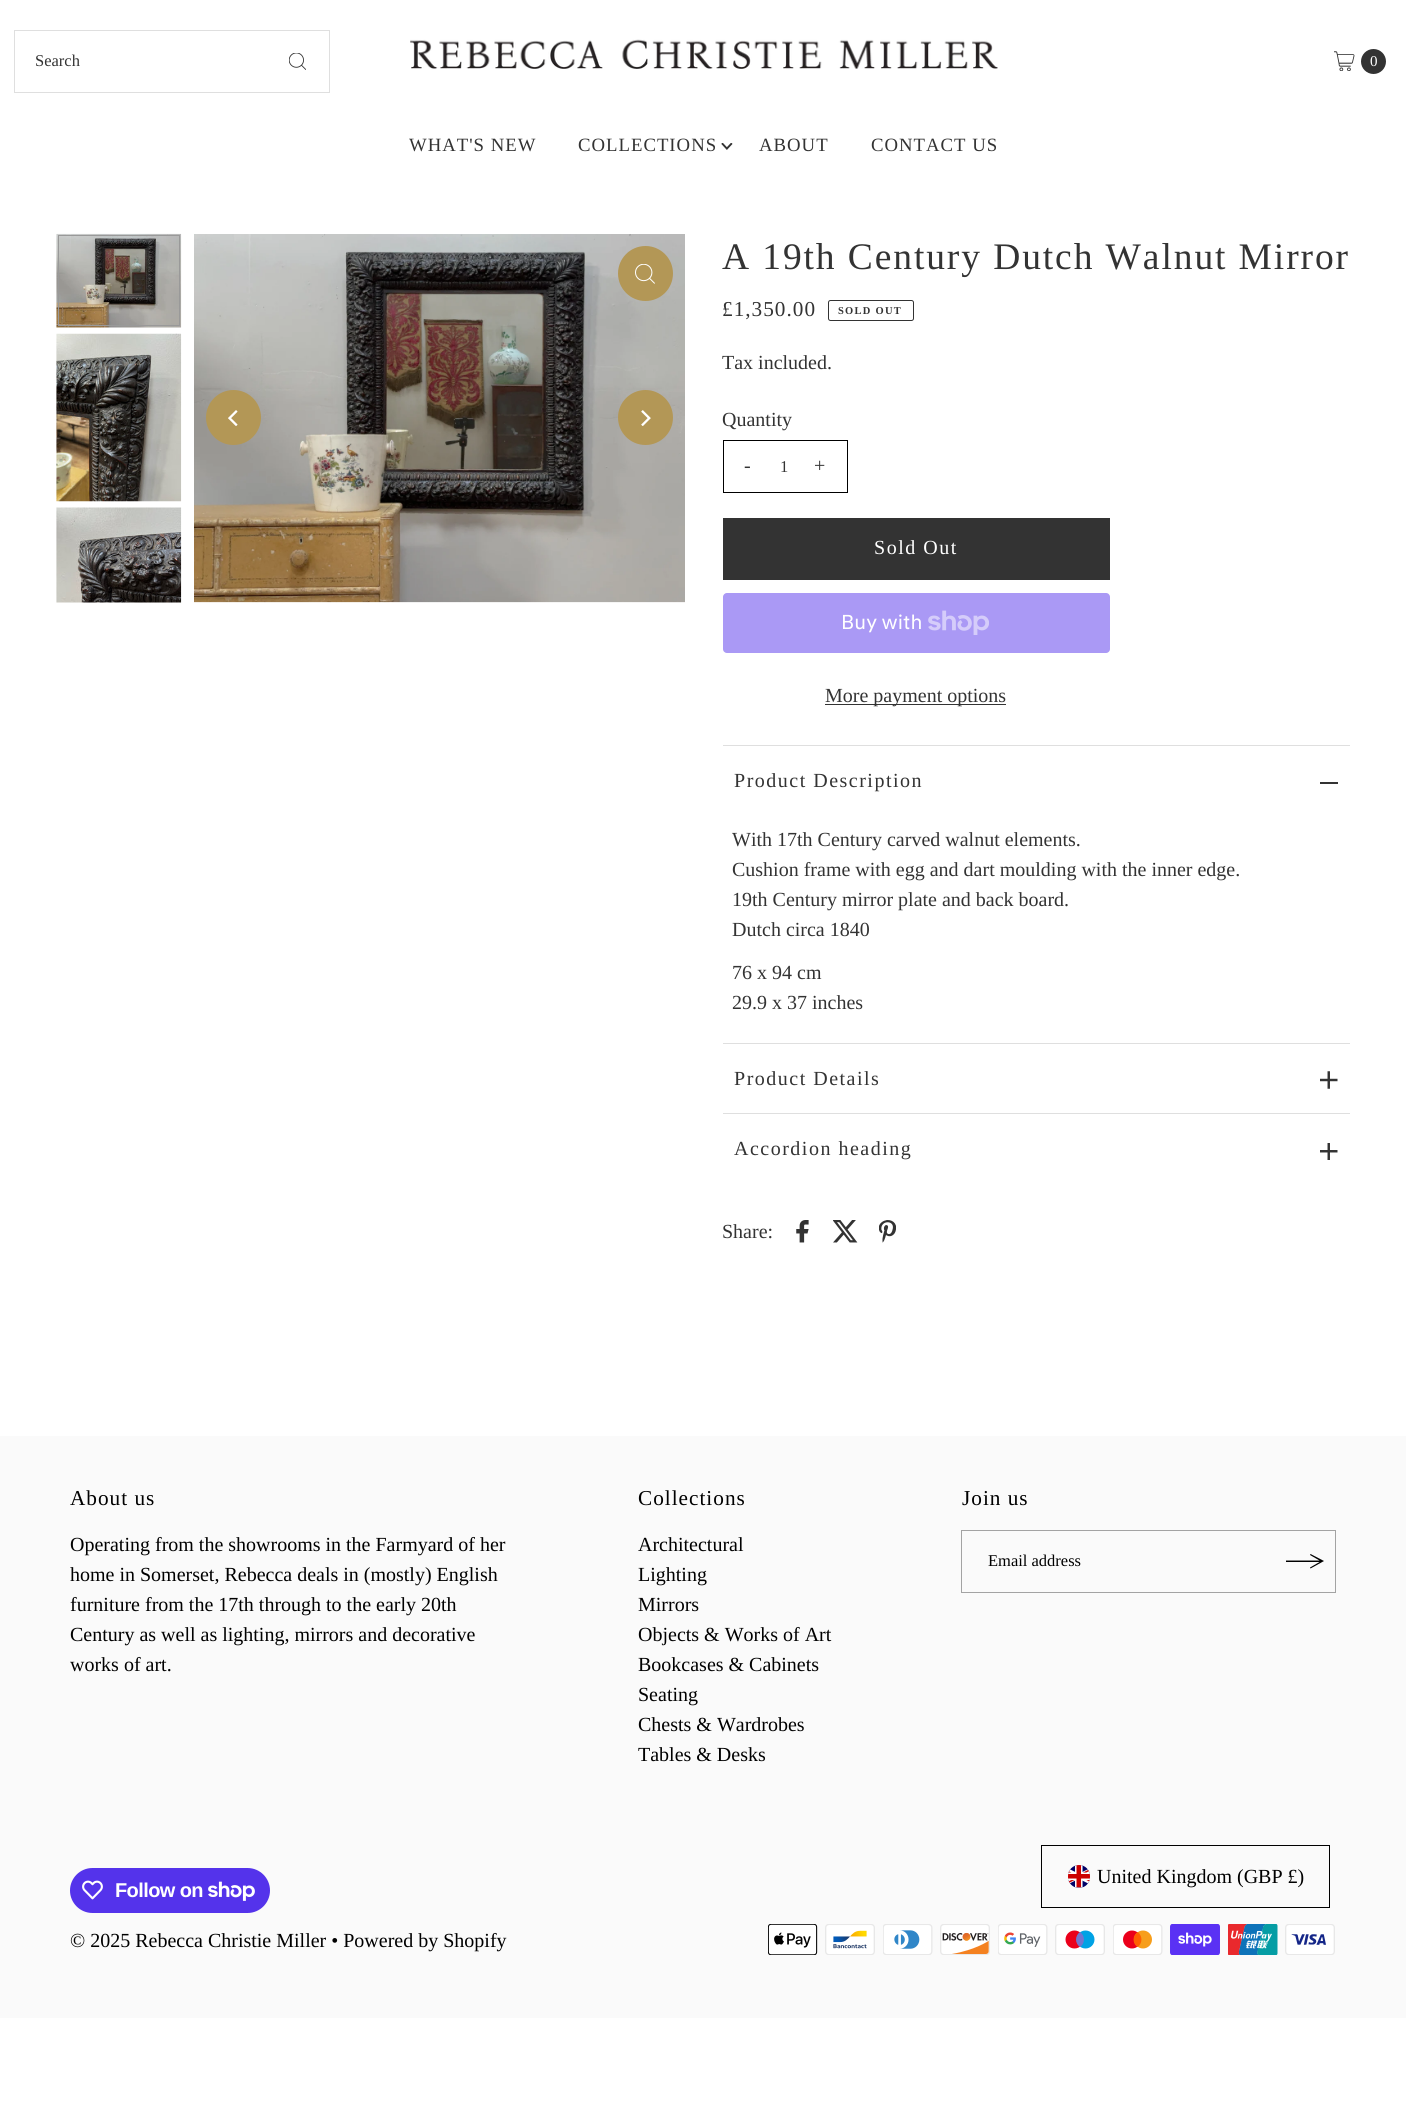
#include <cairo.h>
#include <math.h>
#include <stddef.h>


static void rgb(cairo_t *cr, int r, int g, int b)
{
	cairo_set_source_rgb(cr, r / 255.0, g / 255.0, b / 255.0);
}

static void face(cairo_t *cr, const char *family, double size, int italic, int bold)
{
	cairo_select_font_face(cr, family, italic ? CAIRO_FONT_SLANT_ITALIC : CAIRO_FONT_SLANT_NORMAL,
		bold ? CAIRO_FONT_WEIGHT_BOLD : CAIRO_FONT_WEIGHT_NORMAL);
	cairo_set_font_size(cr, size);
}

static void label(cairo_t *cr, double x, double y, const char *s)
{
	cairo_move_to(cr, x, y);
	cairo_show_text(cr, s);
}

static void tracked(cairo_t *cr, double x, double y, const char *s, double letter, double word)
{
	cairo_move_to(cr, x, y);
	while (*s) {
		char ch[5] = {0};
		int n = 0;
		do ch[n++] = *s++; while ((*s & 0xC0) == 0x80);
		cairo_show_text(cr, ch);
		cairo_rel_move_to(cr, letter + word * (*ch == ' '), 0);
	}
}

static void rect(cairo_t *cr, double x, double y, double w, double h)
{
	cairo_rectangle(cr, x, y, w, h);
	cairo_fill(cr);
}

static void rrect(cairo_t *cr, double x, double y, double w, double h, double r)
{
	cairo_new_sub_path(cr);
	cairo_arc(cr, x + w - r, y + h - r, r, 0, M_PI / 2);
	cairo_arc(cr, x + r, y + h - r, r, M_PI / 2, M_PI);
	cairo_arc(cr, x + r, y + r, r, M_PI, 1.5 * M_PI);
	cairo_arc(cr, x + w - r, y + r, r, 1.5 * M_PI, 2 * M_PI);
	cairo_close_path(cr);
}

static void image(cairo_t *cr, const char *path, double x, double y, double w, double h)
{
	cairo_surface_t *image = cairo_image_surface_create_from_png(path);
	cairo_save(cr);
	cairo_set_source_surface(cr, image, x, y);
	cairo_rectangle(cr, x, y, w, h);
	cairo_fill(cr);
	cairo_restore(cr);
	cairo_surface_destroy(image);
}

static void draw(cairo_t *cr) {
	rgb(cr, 255, 255, 255);
	cairo_paint(cr);
	cairo_rectangle(cr, 14.5, 30.5, 315, 62);
	rgb(cr, 223, 223, 223);
	cairo_set_line_width(cr, 1);
	cairo_stroke(cr);
	face(cr, "Liberation Serif", 16.5, 0, 0);
	rgb(cr, 51, 51, 51);
	label(cr, 35, 66, "Search");
	image(cr, "image0.png", 289, 53, 17, 17);
	image(cr, "image1.png", 410, 39, 588, 30);
	image(cr, "image2.png", 1334, 51, 21, 20);
	cairo_arc(cr, 1373.5, 61.5, 12.5, 0, 2 * M_PI);
	cairo_fill(cr);
	face(cr, "Liberation Serif", 15, 0, 0);
	rgb(cr, 255, 255, 255);
	label(cr, 1370, 66, "0");
	face(cr, "Liberation Serif", 18.75, 0, 0);
	rgb(cr, 51, 51, 51);
	tracked(cr, 409, 151, "WHAT'S NEW", 1, 0);
	tracked(cr, 578, 151, "COLLECTIONS", 1, 0);
	image(cr, "image3.png", 721, 143, 12, 7);
	tracked(cr, 759, 151, "ABOUT", 1, 0);
	tracked(cr, 871, 151, "CONTACT US", 1, 0);
	image(cr, "image4.png", 56, 233, 126, 95);
	cairo_rectangle(cr, 58.5, 235.5, 121, 90);
	rgb(cr, 153, 153, 153);
	cairo_stroke(cr);
	image(cr, "image5.png", 56, 333, 126, 169);
	image(cr, "image6.png", 56, 507, 126, 96);
	image(cr, "image7.png", 194, 234, 491, 369);
	rgb(cr, 179, 151, 86);
	cairo_arc(cr, 645.5, 273.5, 27.5, 0, 2 * M_PI);
	cairo_fill(cr);
	image(cr, "image8.png", 635, 264, 20, 20);
	cairo_arc(cr, 233.5, 417.5, 27.5, 0, 2 * M_PI);
	cairo_fill(cr);
	image(cr, "image9.png", 228, 410, 10, 16);
	cairo_arc(cr, 645.5, 417.5, 27.5, 0, 2 * M_PI);
	cairo_fill(cr);
	image(cr, "image10.png", 641, 410, 10, 16);
	face(cr, "Liberation Serif", 37.5, 0, 0);
	rgb(cr, 51, 51, 51);
	tracked(cr, 722, 269, "A 19th Century Dutch Walnut Mirror", 1.9, 0);
	face(cr, "Liberation Serif", 21.25, 0, 0);
	tracked(cr, 722, 316, "£1,350.00", 1, 0);
	rrect(cr, 828.5, 300.5, 85, 20, 2);
	cairo_stroke(cr);
	face(cr, "Liberation Serif", 10.5, 0, 1);
	tracked(cr, 838, 314, "SOLD OUT", 1.25, 0);
	face(cr, "Liberation Serif", 20, 0, 0);
	label(cr, 722, 369, "Tax included.");
	label(cr, 722, 426, "Quantity");
	cairo_rectangle(cr, 723.5, 440.5, 124, 52);
	rgb(cr, 0, 0, 0);
	cairo_stroke(cr);
	rgb(cr, 51, 51, 51);
	tracked(cr, 744, 472, "-", 1.5, 0);
	face(cr, "Liberation Serif", 16.5, 0, 0);
	label(cr, 780, 472, "1");
	face(cr, "Liberation Serif", 20, 0, 0);
	tracked(cr, 814, 472, "+", 1.5, 0);
	rect(cr, 723, 518, 387, 62);
	rgb(cr, 255, 255, 255);
	tracked(cr, 874, 554, "Sold Out", 1.5, 0);
	rgb(cr, 170, 153, 245);
	rrect(cr, 723, 593, 387, 60, 4);
	cairo_fill(cr);
	face(cr, "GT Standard", 20, 0, 0);
	rgb(cr, 255, 255, 255);
	label(cr, 841, 629, "Buy with");
	image(cr, "image11.png", 928, 610, 61, 25);
	rgb(cr, 51, 51, 51);
	rect(cr, 825, 704, 181, 1);
	face(cr, "Liberation Serif", 20, 0, 0);
	label(cr, 825, 702, "More payment options");
	rgb(cr, 223, 223, 223);
	rect(cr, 723, 745, 627, 1);
	rgb(cr, 51, 51, 51);
	tracked(cr, 734, 787, "Product Description", 1.5, 0);
	rect(cr, 1320, 782, 18, 2);
	label(cr, 732, 846, "With 17th Century carved walnut elements.");
	label(cr, 732, 876, "Cushion frame with egg and dart moulding with the inner edge.");
	label(cr, 732, 906, "19th Century mirror plate and back board.");
	label(cr, 732, 936, "Dutch circa 1840");
	label(cr, 732, 979, "76 x 94 cm");
	label(cr, 732, 1009, "29.9 x 37 inches");
	rgb(cr, 223, 223, 223);
	rect(cr, 723, 1043, 627, 1);
	rgb(cr, 51, 51, 51);
	tracked(cr, 734, 1085, "Product Details", 1.5, 0);
	image(cr, "image12.png", 1320, 1071, 18, 18);
	rgb(cr, 223, 223, 223);
	rect(cr, 723, 1113, 627, 1);
	rgb(cr, 51, 51, 51);
	tracked(cr, 734, 1155, "Accordion heading", 1.5, 0);
	image(cr, "image13.png", 1320, 1143, 18, 17);
	label(cr, 722, 1238, "Share:");
	image(cr, "image14.png", 796, 1220, 13, 23);
	image(cr, "image15.png", 833, 1220, 25, 23);
	image(cr, "image16.png", 879, 1220, 17, 23);
	rgb(cr, 250, 250, 250);
	rect(cr, 0, 1436, 1406, 582);
	face(cr, "Liberation Serif", 21.25, 0, 0);
	rgb(cr, 0, 0, 0);
	tracked(cr, 70, 1505, "About us", 1, 0);
	face(cr, "Liberation Serif", 20, 0, 0);
	label(cr, 70, 1551, "Operating from the showrooms in the Farmyard of her");
	label(cr, 70, 1581, "home in Somerset, Rebecca deals in (mostly) English");
	label(cr, 70, 1611, "furniture from the 17th through to the early 20th");
	label(cr, 70, 1641, "Century as well as lighting, mirrors and decorative");
	label(cr, 70, 1671, "works of art.");
	face(cr, "Liberation Serif", 21.25, 0, 0);
	tracked(cr, 638, 1505, "Collections", 1, 0);
	face(cr, "Liberation Serif", 20, 0, 0);
	label(cr, 638, 1551, "Architectural");
	label(cr, 638, 1581, "Lighting");
	label(cr, 638, 1611, "Mirrors");
	label(cr, 638, 1641, "Objects & Works of Art");
	label(cr, 638, 1671, "Bookcases & Cabinets");
	label(cr, 638, 1701, "Seating");
	label(cr, 638, 1731, "Chests & Wardrobes");
	label(cr, 638, 1761, "Tables & Desks");
	face(cr, "Liberation Serif", 21.25, 0, 0);
	tracked(cr, 962, 1505, "Join us", 1, 0);
	cairo_rectangle(cr, 961.5, 1530.5, 374, 62);
	rgb(cr, 163, 163, 163);
	cairo_stroke(cr);
	face(cr, "Liberation Serif", 16.5, 0, 0);
	rgb(cr, 0, 0, 0);
	label(cr, 988, 1566, "Email address");
	cairo_new_path(cr);
	cairo_move_to(cr, 1310.5, 1554);
	cairo_line_to(cr, 1324, 1561);
	cairo_line_to(cr, 1310.5, 1568.5);
	cairo_line_to(cr, 1310, 1567.5);
	cairo_line_to(cr, 1319.5, 1562);
	cairo_line_to(cr, 1286, 1562);
	cairo_line_to(cr, 1286, 1560.5);
	cairo_line_to(cr, 1319.5, 1560.5);
	cairo_line_to(cr, 1310, 1555);
	cairo_close_path(cr);
	cairo_fill(cr);
	cairo_rectangle(cr, 1041.5, 1845.5, 288, 62);
	cairo_stroke(cr);
	image(cr, "image17.png", 1068, 1865, 22, 23);
	face(cr, "Liberation Serif", 20, 0, 0);
	label(cr, 1097, 1883, "United Kingdom (GBP £)");
	image(cr, "image18.png", 768, 1924, 50, 31);
	image(cr, "image19.png", 825, 1924, 50, 31);
	image(cr, "image20.png", 883, 1924, 50, 31);
	image(cr, "image21.png", 940, 1924, 50, 31);
	image(cr, "image22.png", 998, 1924, 50, 31);
	image(cr, "image23.png", 1055, 1924, 50, 31);
	image(cr, "image24.png", 1113, 1924, 50, 31);
	image(cr, "image25.png", 1170, 1924, 50, 31);
	image(cr, "image26.png", 1228, 1924, 50, 31);
	image(cr, "image27.png", 1285, 1924, 50, 31);
	rgb(cr, 84, 51, 235);
	rrect(cr, 70, 1868, 200, 45, 22.5);
	cairo_fill(cr);
	image(cr, "image28.png", 82, 1880, 21, 20);
	face(cr, "Liberation Sans", 20, 0, 1);
	rgb(cr, 255, 255, 255);
	tracked(cr, 115, 1897, "Follow on", -0.6, 0);
	image(cr, "image29.png", 208, 1881, 47, 20);
	face(cr, "Liberation Serif", 20, 0, 0);
	rgb(cr, 0, 0, 0);
	label(cr, 70, 1947, "© 2025 Rebecca Christie Miller • Powered by Shopify");
}

int main(void) {
	cairo_surface_t *surface = cairo_image_surface_create(CAIRO_FORMAT_RGB24, 1406, 2118);
	cairo_t *cr = cairo_create(surface);
	cairo_font_options_t *options = cairo_font_options_create();
	cairo_font_options_set_hint_metrics(options, CAIRO_HINT_METRICS_OFF);
	cairo_font_options_set_hint_style(options, CAIRO_HINT_STYLE_NONE);
	cairo_set_font_options(cr, options);
	cairo_set_miter_limit(cr, 4);
	draw(cr);
	cairo_surface_write_to_png(surface, "render.png");
	cairo_font_options_destroy(options);
	cairo_destroy(cr);
	cairo_surface_destroy(surface);
	return 0;
}
